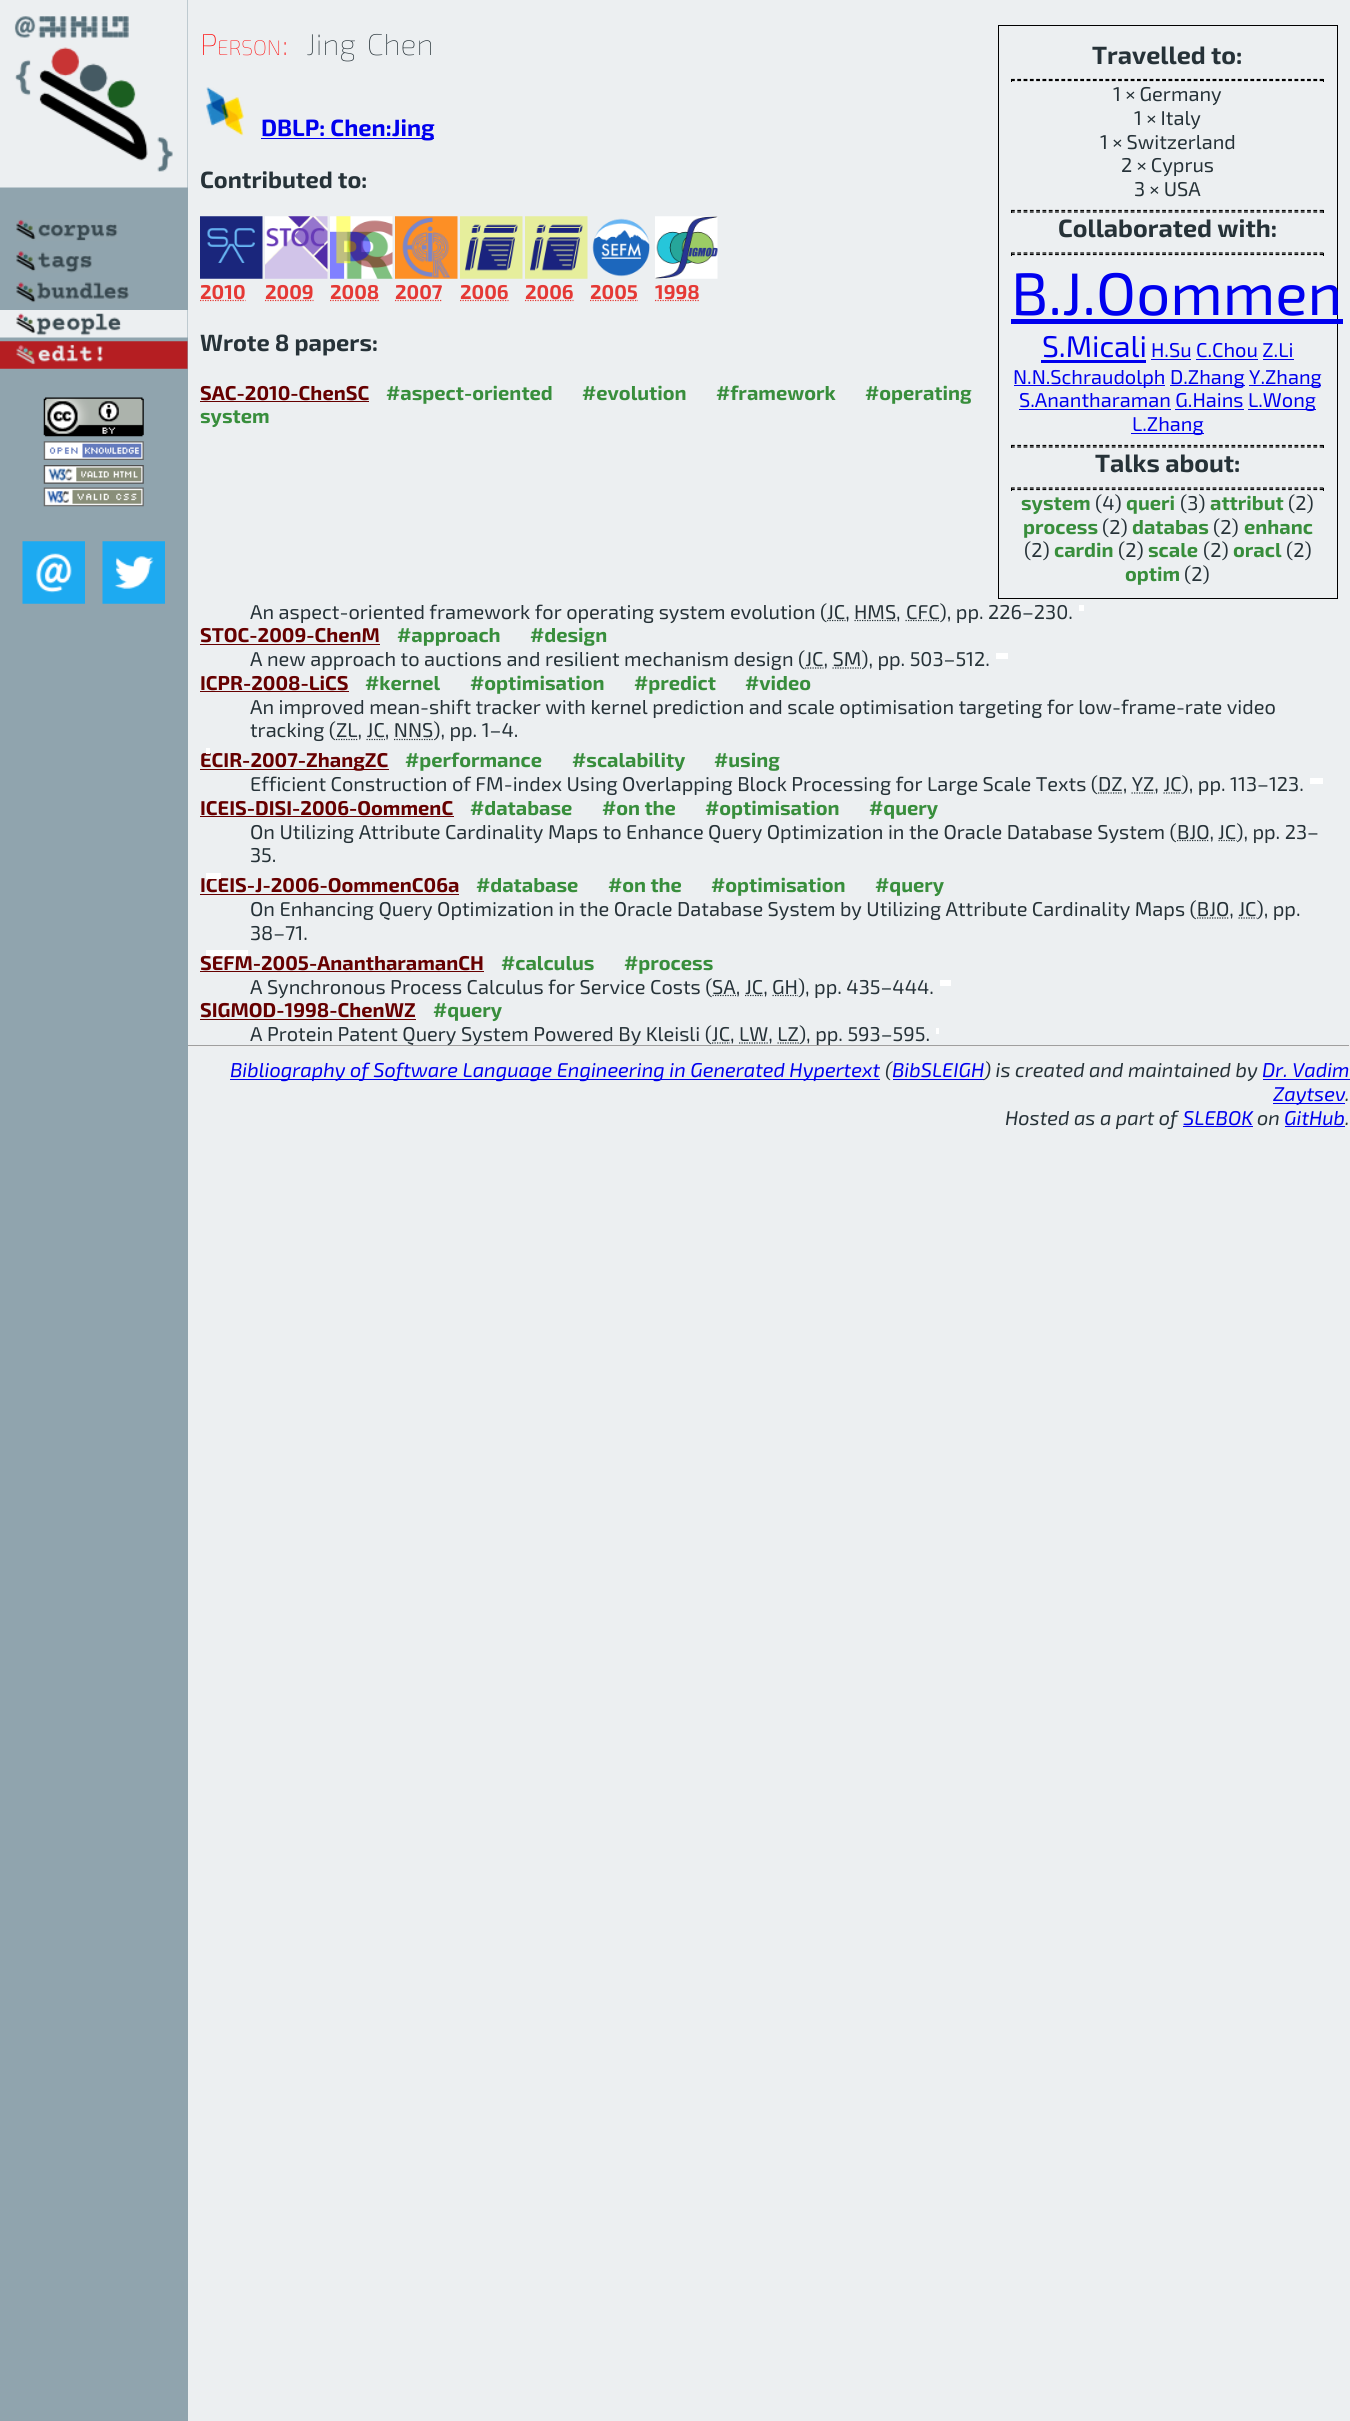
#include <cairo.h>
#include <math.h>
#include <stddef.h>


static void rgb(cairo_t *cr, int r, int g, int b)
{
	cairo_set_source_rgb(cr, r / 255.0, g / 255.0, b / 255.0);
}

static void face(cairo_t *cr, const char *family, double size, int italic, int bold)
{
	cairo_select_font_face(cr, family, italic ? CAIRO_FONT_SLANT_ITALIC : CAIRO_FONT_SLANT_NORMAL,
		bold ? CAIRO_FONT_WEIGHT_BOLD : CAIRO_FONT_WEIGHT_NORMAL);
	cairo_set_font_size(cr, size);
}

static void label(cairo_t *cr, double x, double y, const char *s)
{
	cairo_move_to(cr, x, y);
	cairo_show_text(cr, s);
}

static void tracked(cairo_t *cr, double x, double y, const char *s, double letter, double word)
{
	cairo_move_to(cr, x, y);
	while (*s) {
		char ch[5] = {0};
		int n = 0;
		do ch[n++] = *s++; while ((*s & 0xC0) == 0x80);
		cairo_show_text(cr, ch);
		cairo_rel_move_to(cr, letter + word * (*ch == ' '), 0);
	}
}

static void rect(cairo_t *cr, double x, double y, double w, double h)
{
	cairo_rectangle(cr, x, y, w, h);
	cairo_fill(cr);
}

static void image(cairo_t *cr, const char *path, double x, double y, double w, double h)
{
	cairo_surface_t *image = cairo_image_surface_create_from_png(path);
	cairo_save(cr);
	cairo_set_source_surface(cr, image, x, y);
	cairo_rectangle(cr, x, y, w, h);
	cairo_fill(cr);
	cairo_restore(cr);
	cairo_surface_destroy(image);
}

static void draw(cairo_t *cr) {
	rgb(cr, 236, 239, 241);
	cairo_paint(cr);
	rgb(cr, 144, 164, 174);
	rect(cr, 0, 0, 188, 2421);
	image(cr, "image0.png", 0, 0, 188, 188);
	image(cr, "image1.png", 16, 219, 102, 22);
	image(cr, "image2.png", 16, 251, 76, 22);
	image(cr, "image3.png", 16, 282, 113, 21);
	image(cr, "image4.png", 0, 310, 188, 28);
	image(cr, "image5.png", 0, 341, 188, 28);
	image(cr, "image6.png", 43, 397, 101, 40);
	image(cr, "image7.png", 43, 441, 101, 19);
	image(cr, "image8.png", 43, 465, 101, 19);
	image(cr, "image9.png", 43, 487, 101, 20);
	image(cr, "image10.png", 22, 541, 63, 63);
	image(cr, "image11.png", 102, 541, 63, 63);
	face(cr, "Exo 2 Thin", 30, 0, 0);
	rgb(cr, 255, 0, 0);
	label(cr, 200, 55, "P");
	face(cr, "Exo 2 Thin", 21, 0, 0);
	label(cr, 217, 55, "ERSON");
	face(cr, "Exo 2 Thin", 30, 0, 0);
	label(cr, 282, 55, ":");
	rgb(cr, 38, 50, 56);
	tracked(cr, 306, 55, "Jing Chen", 0, 4);
	cairo_rectangle(cr, 998.5, 25.5, 339, 573);
	rgb(cr, 0, 0, 0);
	cairo_set_line_width(cr, 1);
	cairo_stroke(cr);
	face(cr, "Exo 2", 25, 0, 1);
	rgb(cr, 38, 50, 56);
	label(cr, 1092, 64, "Travelled to:");
	cairo_new_path(cr);
	cairo_move_to(cr, 1011, 79.5);
	cairo_line_to(cr, 1324, 79.5);
	rgb(cr, 0, 0, 0);
	cairo_set_line_width(cr, 1.2);
	cairo_set_dash(cr, (double[]){3.75, 2.55}, 2, 0);
	cairo_stroke(cr);
	rect(cr, 1323, 79, 1, 3);
	cairo_new_path(cr);
	cairo_move_to(cr, 1011, 80.5);
	cairo_line_to(cr, 1324, 80.5);
	cairo_stroke(cr);
	rect(cr, 1011, 79, 1, 3);
	face(cr, "Exo 2", 20, 0, 0);
	rgb(cr, 38, 50, 56);
	label(cr, 1113, 101, "1 × Germany");
	label(cr, 1134, 125, "1 × Italy");
	label(cr, 1100, 149, "1 × Switzerland");
	label(cr, 1121, 172, "2 × Cyprus");
	label(cr, 1134, 196, "3 × USA");
	cairo_new_path(cr);
	cairo_move_to(cr, 1011, 210.5);
	cairo_line_to(cr, 1324, 210.5);
	rgb(cr, 0, 0, 0);
	cairo_stroke(cr);
	rect(cr, 1323, 210, 1, 3);
	cairo_new_path(cr);
	cairo_move_to(cr, 1011, 212);
	cairo_line_to(cr, 1324, 212);
	cairo_stroke(cr);
	rect(cr, 1011, 210, 1, 3);
	face(cr, "Exo 2", 25, 0, 1);
	rgb(cr, 38, 50, 56);
	label(cr, 1058, 237, "Collaborated with:");
	cairo_new_path(cr);
	cairo_move_to(cr, 1011, 253);
	cairo_line_to(cr, 1324, 253);
	rgb(cr, 0, 0, 0);
	cairo_stroke(cr);
	rect(cr, 1323, 253, 1, 3);
	cairo_new_path(cr);
	cairo_move_to(cr, 1011, 254.5);
	cairo_line_to(cr, 1324, 254.5);
	cairo_stroke(cr);
	rect(cr, 1011, 253, 1, 3);
	face(cr, "Exo 2", 60, 0, 0);
	rgb(cr, 0, 0, 238);
	label(cr, 1011, 315, "B.J.Oommen");
	rect(cr, 1011, 319, 332, 5);
	face(cr, "Exo 2", 30, 0, 0);
	label(cr, 1042, 357, "S.Micali");
	rect(cr, 1041, 360, 105, 3);
	face(cr, "Exo 2", 20, 0, 0);
	label(cr, 1151, 357, "H.Su C.Chou Z.Li");
	rect(cr, 1151, 359, 40, 1);
	rect(cr, 1196, 359, 62, 1);
	rect(cr, 1263, 359, 31, 1);
	rect(cr, 1014, 385, 151, 1);
	label(cr, 1013, 384, "N.N.Schraudolph");
	rect(cr, 1170, 385, 75, 1);
	label(cr, 1170, 384, "D.Zhang");
	rect(cr, 1249, 385, 72, 1);
	label(cr, 1249, 384, "Y.Zhang");
	label(cr, 1019, 407, "S.Anantharaman G.Hains");
	rect(cr, 1019, 409, 152, 1);
	rect(cr, 1248, 409, 68, 1);
	label(cr, 1248, 407, "L.Wong");
	rect(cr, 1175, 409, 69, 1);
	rect(cr, 1131, 433, 73, 1);
	label(cr, 1132, 431, "L.Zhang");
	cairo_new_path(cr);
	cairo_move_to(cr, 1011, 445.5);
	cairo_line_to(cr, 1324, 445.5);
	rgb(cr, 0, 0, 0);
	cairo_stroke(cr);
	rect(cr, 1323, 445, 1, 3);
	cairo_new_path(cr);
	cairo_move_to(cr, 1011, 447);
	cairo_line_to(cr, 1324, 447);
	cairo_stroke(cr);
	rect(cr, 1011, 445, 1, 3);
	face(cr, "Exo 2", 25, 0, 1);
	rgb(cr, 38, 50, 56);
	label(cr, 1095, 472, "Talks about:");
	cairo_new_path(cr);
	cairo_move_to(cr, 1011, 488);
	cairo_line_to(cr, 1324, 488);
	rgb(cr, 0, 0, 0);
	cairo_stroke(cr);
	rect(cr, 1323, 488, 1, 3);
	cairo_new_path(cr);
	cairo_move_to(cr, 1011, 489.5);
	cairo_line_to(cr, 1324, 489.5);
	cairo_stroke(cr);
	rect(cr, 1011, 488, 1, 3);
	face(cr, "Exo 2", 20, 0, 1);
	rgb(cr, 56, 142, 60);
	label(cr, 1021, 510, "system");
	face(cr, "Exo 2", 20, 0, 0);
	rgb(cr, 38, 50, 56);
	label(cr, 1095, 510, "(4)");
	face(cr, "Exo 2", 20, 0, 1);
	rgb(cr, 56, 142, 60);
	label(cr, 1126, 510, "queri");
	face(cr, "Exo 2", 20, 0, 0);
	rgb(cr, 38, 50, 56);
	label(cr, 1180, 510, "(3)");
	face(cr, "Exo 2", 20, 0, 1);
	rgb(cr, 56, 142, 60);
	label(cr, 1210, 510, "attribut");
	face(cr, "Exo 2", 20, 0, 0);
	rgb(cr, 38, 50, 56);
	label(cr, 1288, 510, "(2)");
	face(cr, "Exo 2", 20, 0, 1);
	rgb(cr, 56, 142, 60);
	label(cr, 1023, 534, "process");
	face(cr, "Exo 2", 20, 0, 0);
	rgb(cr, 38, 50, 56);
	label(cr, 1102, 534, "(2)");
	face(cr, "Exo 2", 20, 0, 1);
	rgb(cr, 56, 142, 60);
	label(cr, 1132, 534, "databas");
	face(cr, "Exo 2", 20, 0, 0);
	rgb(cr, 38, 50, 56);
	label(cr, 1213, 534, "(2)");
	face(cr, "Exo 2", 20, 0, 1);
	rgb(cr, 56, 142, 60);
	label(cr, 1244, 534, "enhanc");
	face(cr, "Exo 2", 20, 0, 0);
	rgb(cr, 38, 50, 56);
	label(cr, 1024, 557, "(2)");
	face(cr, "Exo 2", 20, 0, 1);
	rgb(cr, 56, 142, 60);
	label(cr, 1054, 557, "cardin");
	face(cr, "Exo 2", 20, 0, 0);
	rgb(cr, 38, 50, 56);
	label(cr, 1118, 557, "(2)");
	face(cr, "Exo 2", 20, 0, 1);
	rgb(cr, 56, 142, 60);
	label(cr, 1148, 557, "scale");
	face(cr, "Exo 2", 20, 0, 0);
	rgb(cr, 38, 50, 56);
	label(cr, 1203, 557, "(2)");
	face(cr, "Exo 2", 20, 0, 1);
	rgb(cr, 56, 142, 60);
	label(cr, 1233, 557, "oracl");
	face(cr, "Exo 2", 20, 0, 0);
	rgb(cr, 38, 50, 56);
	label(cr, 1286, 557, "(2)");
	face(cr, "Exo 2", 20, 0, 1);
	rgb(cr, 56, 142, 60);
	label(cr, 1125, 581, "optim");
	face(cr, "Exo 2", 20, 0, 0);
	rgb(cr, 38, 50, 56);
	label(cr, 1184, 581, "(2)");
	image(cr, "image12.png", 206, 87, 38, 49);
	rgb(cr, 0, 0, 238);
	rect(cr, 261, 138, 173, 1);
	face(cr, "Exo 2", 23.5, 0, 1);
	label(cr, 261, 136, "DBLP: Chen:Jing");
	rgb(cr, 38, 50, 56);
	label(cr, 200, 188, "Contributed to:");
	image(cr, "image13.png", 200, 216, 63, 63);
	cairo_new_path(cr);
	cairo_move_to(cr, 200, 300.5);
	cairo_line_to(cr, 245.5, 300.5);
	rgb(cr, 229, 57, 53);
	cairo_set_dash(cr, (double[]){1.25, 1.25}, 2, 0);
	cairo_stroke(cr);
	face(cr, "Exo 2", 20, 0, 1);
	label(cr, 200, 299, "2010");
	image(cr, "image14.png", 265, 216, 63, 63);
	cairo_new_path(cr);
	cairo_move_to(cr, 265, 300.5);
	cairo_line_to(cr, 313.5, 300.5);
	cairo_stroke(cr);
	label(cr, 265, 299, "2009");
	image(cr, "image15.png", 330, 216, 63, 63);
	cairo_new_path(cr);
	cairo_move_to(cr, 330, 300.5);
	cairo_line_to(cr, 379.5, 300.5);
	cairo_stroke(cr);
	label(cr, 330, 299, "2008");
	image(cr, "image16.png", 395, 216, 63, 63);
	cairo_new_path(cr);
	cairo_move_to(cr, 395, 300.5);
	cairo_line_to(cr, 442.5, 300.5);
	cairo_stroke(cr);
	label(cr, 395, 299, "2007");
	image(cr, "image17.png", 460, 216, 63, 63);
	cairo_new_path(cr);
	cairo_move_to(cr, 460, 300.5);
	cairo_line_to(cr, 508.5, 300.5);
	cairo_stroke(cr);
	label(cr, 460, 299, "2006");
	image(cr, "image18.png", 525, 216, 63, 63);
	cairo_new_path(cr);
	cairo_move_to(cr, 525, 300.5);
	cairo_line_to(cr, 573.5, 300.5);
	cairo_stroke(cr);
	label(cr, 525, 299, "2006");
	image(cr, "image19.png", 592, 218, 58, 59);
	cairo_new_path(cr);
	cairo_move_to(cr, 590, 300.5);
	cairo_line_to(cr, 638, 300.5);
	cairo_stroke(cr);
	label(cr, 590, 299, "2005");
	image(cr, "image20.png", 655, 216, 63, 63);
	cairo_new_path(cr);
	cairo_move_to(cr, 655, 300.5);
	cairo_line_to(cr, 699.5, 300.5);
	cairo_stroke(cr);
	label(cr, 655, 299, "1998");
	face(cr, "Exo 2", 23.5, 0, 1);
	rgb(cr, 38, 50, 56);
	label(cr, 200, 351, "Wrote 8 papers:");
	face(cr, "Exo 2", 20, 0, 1);
	rgb(cr, 102, 0, 0);
	label(cr, 200, 400, "SAC-2010-ChenSC");
	rect(cr, 200, 401, 169, 1);
	rgb(cr, 56, 142, 60);
	label(cr, 386, 400, "#aspect-oriented");
	label(cr, 582, 400, "#evolution");
	label(cr, 716, 400, "#framework");
	label(cr, 865, 400, "#operating");
	label(cr, 200, 423, "system");
	face(cr, "Exo 2", 20, 0, 0);
	rgb(cr, 38, 50, 56);
	label(cr, 250, 619, "An aspect-oriented framework for operating system evolution (");
	cairo_new_path(cr);
	cairo_move_to(cr, 827, 620.5);
	cairo_line_to(cr, 845.5, 620.5);
	cairo_stroke(cr);
	label(cr, 827, 619, "JC,");
	cairo_new_path(cr);
	cairo_move_to(cr, 854.5, 620.5);
	cairo_line_to(cr, 896.5, 620.5);
	cairo_stroke(cr);
	label(cr, 854, 619, "HMS,");
	cairo_new_path(cr);
	cairo_move_to(cr, 905.5, 620.5);
	cairo_line_to(cr, 939, 620.5);
	cairo_stroke(cr);
	label(cr, 906, 619, "CFC), pp. 226–230.");
	rgb(cr, 255, 255, 255);
	rect(cr, 1079, 605, 5, 6);
	face(cr, "Exo 2", 20, 0, 1);
	rgb(cr, 102, 0, 0);
	label(cr, 200, 642, "STOC-2009-ChenM");
	rect(cr, 200, 644, 180, 1);
	rgb(cr, 56, 142, 60);
	label(cr, 397, 642, "#approach");
	label(cr, 530, 642, "#design");
	face(cr, "Exo 2", 20, 0, 0);
	rgb(cr, 38, 50, 56);
	label(cr, 250, 666, "A new approach to auctions and resilient mechanism design (JC, SM), pp. 503–512.");
	cairo_new_path(cr);
	cairo_move_to(cr, 805, 668);
	cairo_line_to(cr, 823.5, 668);
	cairo_move_to(cr, 832.5, 668);
	cairo_line_to(cr, 861, 668);
	cairo_stroke(cr);
	rgb(cr, 255, 255, 255);
	rect(cr, 996, 653, 12, 6);
	face(cr, "Exo 2", 20, 0, 1);
	rgb(cr, 102, 0, 0);
	label(cr, 200, 690, "ICPR-2008-LiCS");
	rect(cr, 200, 691, 149, 1);
	rgb(cr, 56, 142, 60);
	label(cr, 365, 690, "#kernel");
	label(cr, 470, 690, "#optimisation");
	label(cr, 634, 690, "#predict");
	label(cr, 745, 690, "#video");
	face(cr, "Exo 2", 20, 0, 0);
	rgb(cr, 38, 50, 56);
	label(cr, 250, 714, "An improved mean-shift tracker with kernel prediction and scale optimisation targeting for low-frame-rate video");
	label(cr, 250, 737, "tracking (ZL, JC, NNS), pp. 1–4.");
	cairo_new_path(cr);
	cairo_move_to(cr, 336, 739.5);
	cairo_line_to(cr, 357.5, 739.5);
	cairo_move_to(cr, 366.5, 739.5);
	cairo_line_to(cr, 385, 739.5);
	cairo_stroke(cr);
	cairo_new_path(cr);
	cairo_move_to(cr, 394, 739.5);
	cairo_line_to(cr, 433.5, 739.5);
	cairo_stroke(cr);
	rgb(cr, 102, 0, 0);
	rect(cr, 200, 769, 189, 1);
	face(cr, "Exo 2", 20, 0, 1);
	label(cr, 200, 767, "ECIR-2007-ZhangZC");
	rgb(cr, 255, 255, 255);
	rect(cr, 206, 748, 4, 6);
	rgb(cr, 56, 142, 60);
	label(cr, 405, 767, "#performance");
	label(cr, 572, 767, "#scalability");
	label(cr, 714, 767, "#using");
	face(cr, "Exo 2", 20, 0, 0);
	rgb(cr, 38, 50, 56);
	label(cr, 250, 791, "Efficient Construction of FM-index Using Overlapping Block Processing for Large Scale Texts (DZ, YZ, JC), pp. 113–123.");
	cairo_new_path(cr);
	cairo_move_to(cr, 1098, 793);
	cairo_line_to(cr, 1122.5, 793);
	cairo_move_to(cr, 1131.5, 793);
	cairo_line_to(cr, 1154.5, 793);
	cairo_stroke(cr);
	cairo_new_path(cr);
	cairo_move_to(cr, 1163.5, 793);
	cairo_line_to(cr, 1181.5, 793);
	cairo_stroke(cr);
	rgb(cr, 255, 255, 255);
	rect(cr, 1310, 778, 13, 6);
	face(cr, "Exo 2", 20, 0, 1);
	rgb(cr, 102, 0, 0);
	label(cr, 200, 815, "ICEIS-DISI-2006-OommenC");
	rect(cr, 200, 816, 254, 1);
	rgb(cr, 56, 142, 60);
	label(cr, 470, 815, "#database");
	label(cr, 602, 815, "#on the");
	label(cr, 705, 815, "#optimisation");
	label(cr, 869, 815, "#query");
	face(cr, "Exo 2", 20, 0, 0);
	rgb(cr, 38, 50, 56);
	label(cr, 250, 839, "On Utilizing Attribute Cardinality Maps to Enhance Query Optimization in the Oracle Database System (");
	cairo_new_path(cr);
	cairo_move_to(cr, 1177, 840.5);
	cairo_line_to(cr, 1209.5, 840.5);
	cairo_stroke(cr);
	label(cr, 1177, 839, "BJO,");
	cairo_new_path(cr);
	cairo_move_to(cr, 1218.5, 840.5);
	cairo_line_to(cr, 1236.5, 840.5);
	cairo_stroke(cr);
	label(cr, 1218, 839, "JC), pp. 23–");
	label(cr, 250, 862, "35.");
	face(cr, "Exo 2", 20, 0, 1);
	rgb(cr, 102, 0, 0);
	label(cr, 200, 892, "ICEIS-J-2006-OommenC06a");
	rgb(cr, 255, 255, 255);
	rect(cr, 206, 873, 15, 6);
	rgb(cr, 102, 0, 0);
	rect(cr, 200, 894, 259, 1);
	rgb(cr, 56, 142, 60);
	label(cr, 476, 892, "#database");
	label(cr, 608, 892, "#on the");
	label(cr, 711, 892, "#optimisation");
	label(cr, 875, 892, "#query");
	face(cr, "Exo 2", 20, 0, 0);
	rgb(cr, 38, 50, 56);
	label(cr, 250, 916, "On Enhancing Query Optimization in the Oracle Database System by Utilizing Attribute Cardinality Maps (BJO, JC), pp.");
	cairo_new_path(cr);
	cairo_move_to(cr, 1197, 918);
	cairo_line_to(cr, 1229.5, 918);
	cairo_move_to(cr, 1238.5, 918);
	cairo_line_to(cr, 1256.5, 918);
	cairo_stroke(cr);
	label(cr, 250, 940, "38–71.");
	face(cr, "Exo 2", 20, 0, 1);
	rgb(cr, 102, 0, 0);
	label(cr, 200, 970, "SEFM-2005-AnantharamanCH");
	rgb(cr, 255, 255, 255);
	rect(cr, 206, 950, 42, 6);
	rgb(cr, 102, 0, 0);
	rect(cr, 200, 971, 284, 1);
	rgb(cr, 56, 142, 60);
	label(cr, 501, 970, "#calculus");
	label(cr, 624, 970, "#process");
	face(cr, "Exo 2", 20, 0, 0);
	rgb(cr, 38, 50, 56);
	label(cr, 250, 994, "A Synchronous Process Calculus for Service Costs (");
	cairo_new_path(cr);
	cairo_move_to(cr, 712.5, 995.5);
	cairo_line_to(cr, 736, 995.5);
	cairo_stroke(cr);
	label(cr, 712, 994, "SA,");
	cairo_new_path(cr);
	cairo_move_to(cr, 745, 995.5);
	cairo_line_to(cr, 763, 995.5);
	cairo_stroke(cr);
	label(cr, 745, 994, "JC,");
	cairo_new_path(cr);
	cairo_move_to(cr, 772.5, 995.5);
	cairo_line_to(cr, 798, 995.5);
	cairo_stroke(cr);
	label(cr, 772, 994, "GH), pp. 435–444.");
	rgb(cr, 255, 255, 255);
	rect(cr, 940, 980, 11, 6);
	face(cr, "Exo 2", 20, 0, 1);
	rgb(cr, 102, 0, 0);
	label(cr, 200, 1017, "SIGMOD-1998-ChenWZ");
	rect(cr, 200, 1019, 216, 1);
	rgb(cr, 56, 142, 60);
	label(cr, 433, 1017, "#query");
	face(cr, "Exo 2", 20, 0, 0);
	rgb(cr, 38, 50, 56);
	label(cr, 250, 1041, "A Protein Patent Query System Powered By Kleisli (JC, LW, LZ), pp. 593–595.");
	cairo_new_path(cr);
	cairo_move_to(cr, 712, 1043);
	cairo_line_to(cr, 730, 1043);
	cairo_move_to(cr, 739, 1043);
	cairo_line_to(cr, 768.5, 1043);
	cairo_stroke(cr);
	cairo_new_path(cr);
	cairo_move_to(cr, 777.5, 1043);
	cairo_line_to(cr, 799, 1043);
	cairo_stroke(cr);
	rgb(cr, 255, 255, 255);
	rect(cr, 936, 1028, 3, 6);
	rgb(cr, 159, 159, 159);
	rect(cr, 188, 1045, 1162, 1);
	rgb(cr, 238, 238, 238);
	rect(cr, 1349, 1045, 1, 3);
	rect(cr, 188, 1046, 1162, 1);
	rgb(cr, 0, 0, 238);
	rect(cr, 230, 1079, 650, 1);
	face(cr, "Exo 2", 20, 1, 0);
	label(cr, 230, 1077, "Bibliography of Software Language Engineering in Generated Hypertext");
	rgb(cr, 38, 50, 56);
	label(cr, 885, 1077, "(");
	rgb(cr, 0, 0, 238);
	label(cr, 892, 1077, "BibSLEIGH");
	rect(cr, 893, 1079, 91, 1);
	rgb(cr, 38, 50, 56);
	label(cr, 984, 1077, ") is created and maintained by");
	rgb(cr, 0, 0, 238);
	label(cr, 1262, 1077, "Dr. Vadim");
	rect(cr, 1263, 1079, 87, 1);
	rect(cr, 1273, 1103, 72, 1);
	label(cr, 1273, 1101, "Zaytsev");
	rgb(cr, 38, 50, 56);
	label(cr, 1345, 1101, ".");
	label(cr, 1005, 1125, "Hosted as a part of");
	rgb(cr, 0, 0, 238);
	rect(cr, 1183, 1126, 70, 1);
	label(cr, 1183, 1125, "SLEBOK");
	rgb(cr, 38, 50, 56);
	label(cr, 1257, 1125, "on");
	rgb(cr, 0, 0, 238);
	label(cr, 1284, 1125, "GitHub");
	rgb(cr, 38, 50, 56);
	label(cr, 1345, 1125, ".");
	rgb(cr, 0, 0, 238);
	rect(cr, 1285, 1126, 60, 1);
}

int main(void) {
	cairo_surface_t *surface = cairo_image_surface_create(CAIRO_FORMAT_RGB24, 1350, 2421);
	cairo_t *cr = cairo_create(surface);
	cairo_font_options_t *options = cairo_font_options_create();
	cairo_font_options_set_hint_metrics(options, CAIRO_HINT_METRICS_OFF);
	cairo_font_options_set_hint_style(options, CAIRO_HINT_STYLE_NONE);
	cairo_set_font_options(cr, options);
	cairo_set_miter_limit(cr, 4);
	draw(cr);
	cairo_surface_write_to_png(surface, "render.png");
	cairo_font_options_destroy(options);
	cairo_destroy(cr);
	cairo_surface_destroy(surface);
	return 0;
}
